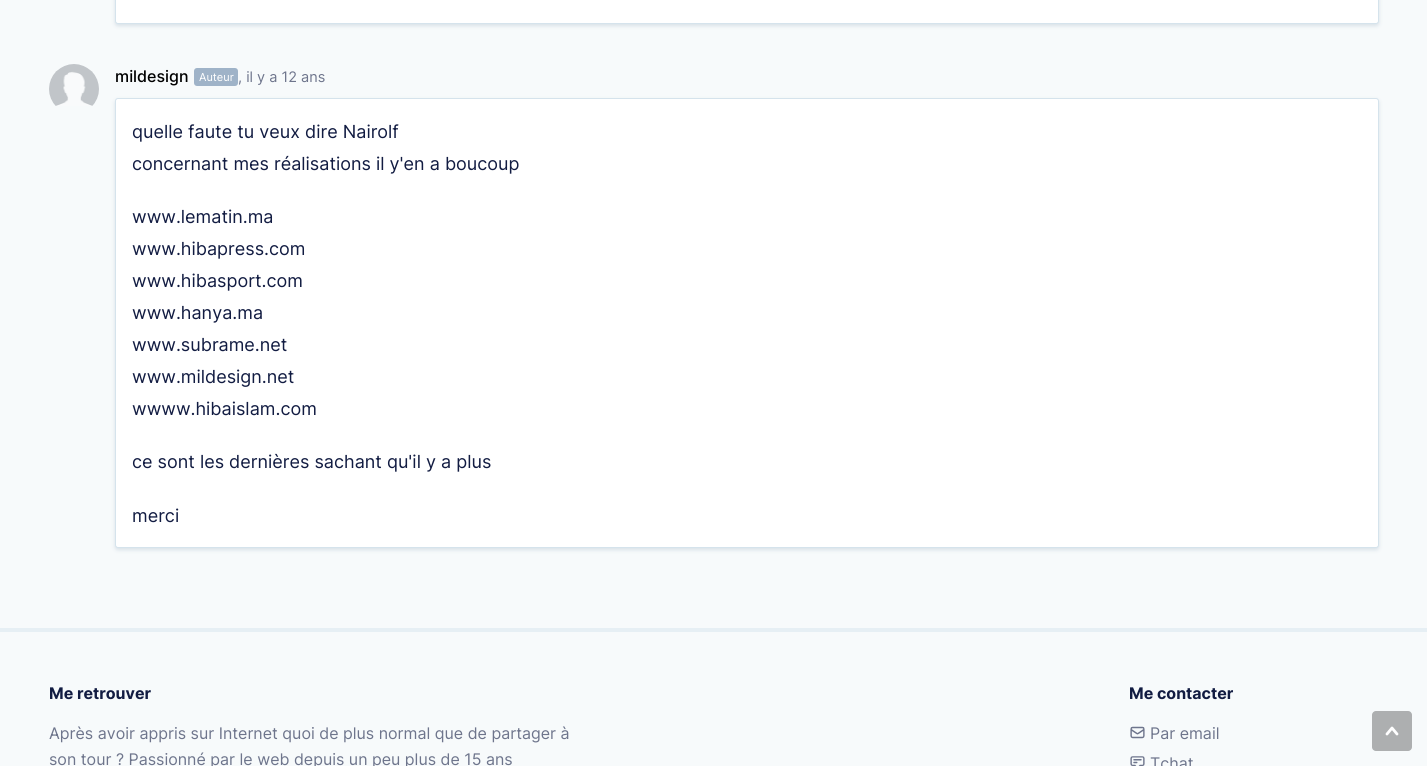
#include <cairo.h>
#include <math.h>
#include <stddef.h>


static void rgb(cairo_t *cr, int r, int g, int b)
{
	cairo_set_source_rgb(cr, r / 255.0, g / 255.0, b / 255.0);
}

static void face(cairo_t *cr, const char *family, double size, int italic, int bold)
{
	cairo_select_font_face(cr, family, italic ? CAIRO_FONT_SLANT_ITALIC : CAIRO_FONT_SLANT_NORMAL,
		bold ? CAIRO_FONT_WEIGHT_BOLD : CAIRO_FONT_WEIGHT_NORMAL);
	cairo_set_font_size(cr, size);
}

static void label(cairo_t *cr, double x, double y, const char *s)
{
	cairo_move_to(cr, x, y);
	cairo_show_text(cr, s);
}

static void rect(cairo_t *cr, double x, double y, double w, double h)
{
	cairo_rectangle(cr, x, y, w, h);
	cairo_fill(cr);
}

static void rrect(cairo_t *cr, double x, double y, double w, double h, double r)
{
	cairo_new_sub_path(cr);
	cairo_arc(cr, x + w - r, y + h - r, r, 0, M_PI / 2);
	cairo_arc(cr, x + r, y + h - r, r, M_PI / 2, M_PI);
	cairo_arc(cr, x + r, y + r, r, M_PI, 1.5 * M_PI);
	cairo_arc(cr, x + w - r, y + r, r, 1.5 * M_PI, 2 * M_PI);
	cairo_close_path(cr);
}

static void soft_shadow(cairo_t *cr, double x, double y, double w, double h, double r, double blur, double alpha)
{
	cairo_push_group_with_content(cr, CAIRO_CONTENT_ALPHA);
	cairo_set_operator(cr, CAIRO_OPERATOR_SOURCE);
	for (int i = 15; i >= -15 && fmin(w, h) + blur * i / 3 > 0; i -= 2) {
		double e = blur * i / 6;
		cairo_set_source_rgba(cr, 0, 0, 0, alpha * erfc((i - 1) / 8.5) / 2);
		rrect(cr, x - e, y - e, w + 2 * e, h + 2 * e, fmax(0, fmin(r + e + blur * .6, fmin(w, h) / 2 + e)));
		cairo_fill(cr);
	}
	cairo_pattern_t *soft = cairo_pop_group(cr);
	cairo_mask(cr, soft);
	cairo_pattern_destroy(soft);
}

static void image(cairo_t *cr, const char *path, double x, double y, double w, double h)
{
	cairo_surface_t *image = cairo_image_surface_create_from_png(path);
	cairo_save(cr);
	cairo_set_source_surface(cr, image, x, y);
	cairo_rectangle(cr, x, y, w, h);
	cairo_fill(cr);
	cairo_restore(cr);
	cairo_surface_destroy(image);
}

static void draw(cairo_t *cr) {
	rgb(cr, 247, 250, 251);
	cairo_paint(cr);
	rgb(cr, 216, 225, 232);
	soft_shadow(cr, 115, -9, 1264, 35, 3, 2, 1);
	rgb(cr, 255, 255, 255);
	rrect(cr, 115.5, -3.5, 1263, 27, 2.5);
	cairo_fill_preserve(cr);
	rgb(cr, 213, 227, 236);
	cairo_set_line_width(cr, 1);
	cairo_stroke(cr);
	image(cr, "image0.png", 49, 64, 50, 42);
	face(cr, "Inter Medium", 16, 0, 0);
	rgb(cr, 0, 0, 0);
	label(cr, 115, 82, "mildesign");
	rgb(cr, 159, 179, 200);
	rrect(cr, 194, 68, 44, 18, 3);
	cairo_fill(cr);
	face(cr, "Inter", 11, 0, 0);
	rgb(cr, 255, 255, 255);
	label(cr, 199, 81, "Auteur");
	face(cr, "Inter", 14.5, 0, 0);
	rgb(cr, 110, 117, 140);
	label(cr, 238, 82, ", il y a 12 ans");
	rgb(cr, 216, 225, 232);
	soft_shadow(cr, 115, 100, 1264, 450, 3, 2, 1);
	rgb(cr, 255, 255, 255);
	rrect(cr, 115.5, 98.5, 1263, 449, 2.5);
	cairo_fill_preserve(cr);
	rgb(cr, 213, 227, 236);
	cairo_stroke(cr);
	face(cr, "Inter", 18, 0, 0);
	rgb(cr, 18, 28, 66);
	label(cr, 132, 138, "quelle faute tu veux dire Nairolf");
	label(cr, 132, 170, "concernant mes réalisations il y'en a boucoup");
	label(cr, 132, 223, "www.lematin.ma");
	label(cr, 132, 255, "www.hibapress.com");
	label(cr, 132, 287, "www.hibasport.com");
	label(cr, 132, 319, "www.hanya.ma");
	label(cr, 132, 351, "www.subrame.net");
	label(cr, 132, 383, "www.mildesign.net");
	label(cr, 132, 415, "wwww.hibaislam.com");
	label(cr, 132, 468, "ce sont les dernières sachant qu'il y a plus");
	label(cr, 132, 522, "merci");
	rgb(cr, 230, 239, 244);
	rect(cr, 0, 628, 1427, 4);
	face(cr, "Inter", 16, 0, 1);
	rgb(cr, 18, 28, 66);
	label(cr, 49, 699, "Me retrouver");
	face(cr, "Inter", 16, 0, 0);
	rgb(cr, 110, 117, 140);
	label(cr, 49, 739, "Après avoir appris sur Internet quoi de plus normal que de partager à");
	label(cr, 49, 765, "son tour ? Passionné par le web depuis un peu plus de 15 ans");
	face(cr, "Inter", 16, 0, 1);
	rgb(cr, 18, 28, 66);
	label(cr, 1129, 699, "Me contacter");
	image(cr, "image1.png", 1130, 726, 15, 13);
	face(cr, "Inter", 16, 0, 0);
	rgb(cr, 110, 117, 140);
	label(cr, 1150, 739, "Par email");
	image(cr, "image2.png", 1130, 756, 15, 10);
	label(cr, 1150, 769, "Tchat");
	rgb(cr, 173, 175, 176);
	rrect(cr, 1372, 711, 40, 40, 4);
	cairo_fill(cr);
	cairo_new_path(cr);
	cairo_move_to(cr, 1387, 734);
	cairo_line_to(cr, 1392, 728);
	cairo_line_to(cr, 1397, 734);
	rgb(cr, 255, 255, 255);
	cairo_set_line_width(cr, 2.8);
	cairo_set_line_cap(cr, CAIRO_LINE_CAP_ROUND);
	cairo_set_line_join(cr, CAIRO_LINE_JOIN_ROUND);
	cairo_stroke(cr);
}

int main(void) {
	cairo_surface_t *surface = cairo_image_surface_create(CAIRO_FORMAT_RGB24, 1427, 766);
	cairo_t *cr = cairo_create(surface);
	cairo_font_options_t *options = cairo_font_options_create();
	cairo_font_options_set_hint_metrics(options, CAIRO_HINT_METRICS_OFF);
	cairo_font_options_set_hint_style(options, CAIRO_HINT_STYLE_NONE);
	cairo_set_font_options(cr, options);
	cairo_set_miter_limit(cr, 4);
	draw(cr);
	cairo_surface_write_to_png(surface, "render.png");
	cairo_font_options_destroy(options);
	cairo_destroy(cr);
	cairo_surface_destroy(surface);
	return 0;
}
